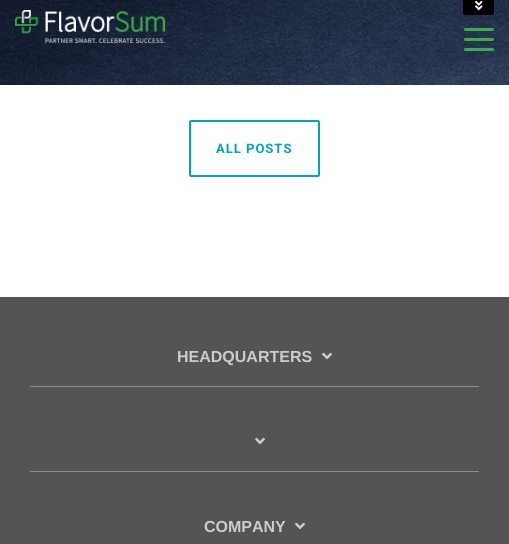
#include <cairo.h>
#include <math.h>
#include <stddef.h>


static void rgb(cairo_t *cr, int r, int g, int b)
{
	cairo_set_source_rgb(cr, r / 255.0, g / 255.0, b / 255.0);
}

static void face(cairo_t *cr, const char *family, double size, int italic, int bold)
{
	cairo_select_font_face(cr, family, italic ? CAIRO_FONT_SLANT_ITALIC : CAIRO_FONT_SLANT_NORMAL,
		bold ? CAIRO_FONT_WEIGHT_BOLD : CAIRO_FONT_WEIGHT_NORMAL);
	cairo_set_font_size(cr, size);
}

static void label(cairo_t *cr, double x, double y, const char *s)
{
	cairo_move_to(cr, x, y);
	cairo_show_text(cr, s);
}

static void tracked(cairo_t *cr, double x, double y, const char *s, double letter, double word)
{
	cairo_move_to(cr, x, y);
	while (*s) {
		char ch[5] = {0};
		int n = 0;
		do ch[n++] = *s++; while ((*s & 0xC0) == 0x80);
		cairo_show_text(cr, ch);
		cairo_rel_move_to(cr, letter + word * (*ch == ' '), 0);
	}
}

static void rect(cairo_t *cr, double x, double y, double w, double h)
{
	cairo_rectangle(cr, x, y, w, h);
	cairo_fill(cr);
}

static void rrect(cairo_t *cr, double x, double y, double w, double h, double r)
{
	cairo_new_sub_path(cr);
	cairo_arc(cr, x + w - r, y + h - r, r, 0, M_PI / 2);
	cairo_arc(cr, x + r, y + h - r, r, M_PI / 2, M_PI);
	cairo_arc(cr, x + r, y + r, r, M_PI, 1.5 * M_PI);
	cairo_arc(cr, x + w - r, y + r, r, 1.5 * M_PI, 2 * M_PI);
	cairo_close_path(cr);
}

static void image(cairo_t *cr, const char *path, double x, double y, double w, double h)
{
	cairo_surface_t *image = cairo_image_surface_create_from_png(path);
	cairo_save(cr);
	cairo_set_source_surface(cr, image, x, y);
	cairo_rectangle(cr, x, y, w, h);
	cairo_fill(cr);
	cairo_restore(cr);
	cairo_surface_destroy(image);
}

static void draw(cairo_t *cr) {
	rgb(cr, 255, 255, 255);
	cairo_paint(cr);
	image(cr, "image1.png", 0, 0, 509, 85);
	rgb(cr, 0, 0, 0);
	cairo_new_path(cr);
	cairo_move_to(cr, 463, -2);
	cairo_line_to(cr, 494, -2);
	cairo_line_to(cr, 494, 13);
	cairo_curve_to(cr, 494, 14, 493, 15, 492, 15);
	cairo_line_to(cr, 465, 15);
	cairo_curve_to(cr, 464, 15, 463, 14, 463, 13);
	cairo_close_path(cr);
	cairo_fill(cr);
	image(cr, "image0.png", 475, 0, 8, 11);
	image(cr, "image2.png", 15, 10, 150, 33);
	rgb(cr, 59, 174, 73);
	rrect(cr, 464, 28, 30, 3, 1.5);
	cairo_fill(cr);
	rrect(cr, 464, 38, 30, 3, 1.5);
	cairo_fill(cr);
	rrect(cr, 464, 48, 30, 3, 1.5);
	cairo_fill(cr);
	rrect(cr, 190, 121, 129, 55, 1);
	rgb(cr, 0, 164, 189);
	cairo_stroke(cr);
	face(cr, "Roboto", 13, 0, 1);
	tracked(cr, 216, 153, "ALL POSTS", 1, 0);
	rgb(cr, 84, 84, 84);
	rect(cr, 0, 297, 509, 247);
	rgb(cr, 138, 142, 143);
	rect(cr, 30, 386, 449, 1);
	face(cr, "Liberation Sans", 16, 0, 1);
	rgb(cr, 204, 204, 204);
	label(cr, 177, 362, "HEADQUARTERS");
	image(cr, "image3.png", 322, 352, 10, 8);
	rgb(cr, 138, 142, 143);
	rect(cr, 30, 471, 449, 1);
	image(cr, "image3.png", 255, 437, 10, 8);
	rgb(cr, 204, 204, 204);
	label(cr, 204, 532, "COMPANY");
	image(cr, "image3.png", 295, 522, 10, 8);
}

int main(void) {
	cairo_surface_t *surface = cairo_image_surface_create(CAIRO_FORMAT_RGB24, 509, 544);
	cairo_t *cr = cairo_create(surface);
	cairo_font_options_t *options = cairo_font_options_create();
	cairo_font_options_set_hint_metrics(options, CAIRO_HINT_METRICS_OFF);
	cairo_font_options_set_hint_style(options, CAIRO_HINT_STYLE_NONE);
	cairo_set_font_options(cr, options);
	cairo_set_miter_limit(cr, 4);
	draw(cr);
	cairo_surface_write_to_png(surface, "render.png");
	cairo_font_options_destroy(options);
	cairo_destroy(cr);
	cairo_surface_destroy(surface);
	return 0;
}
